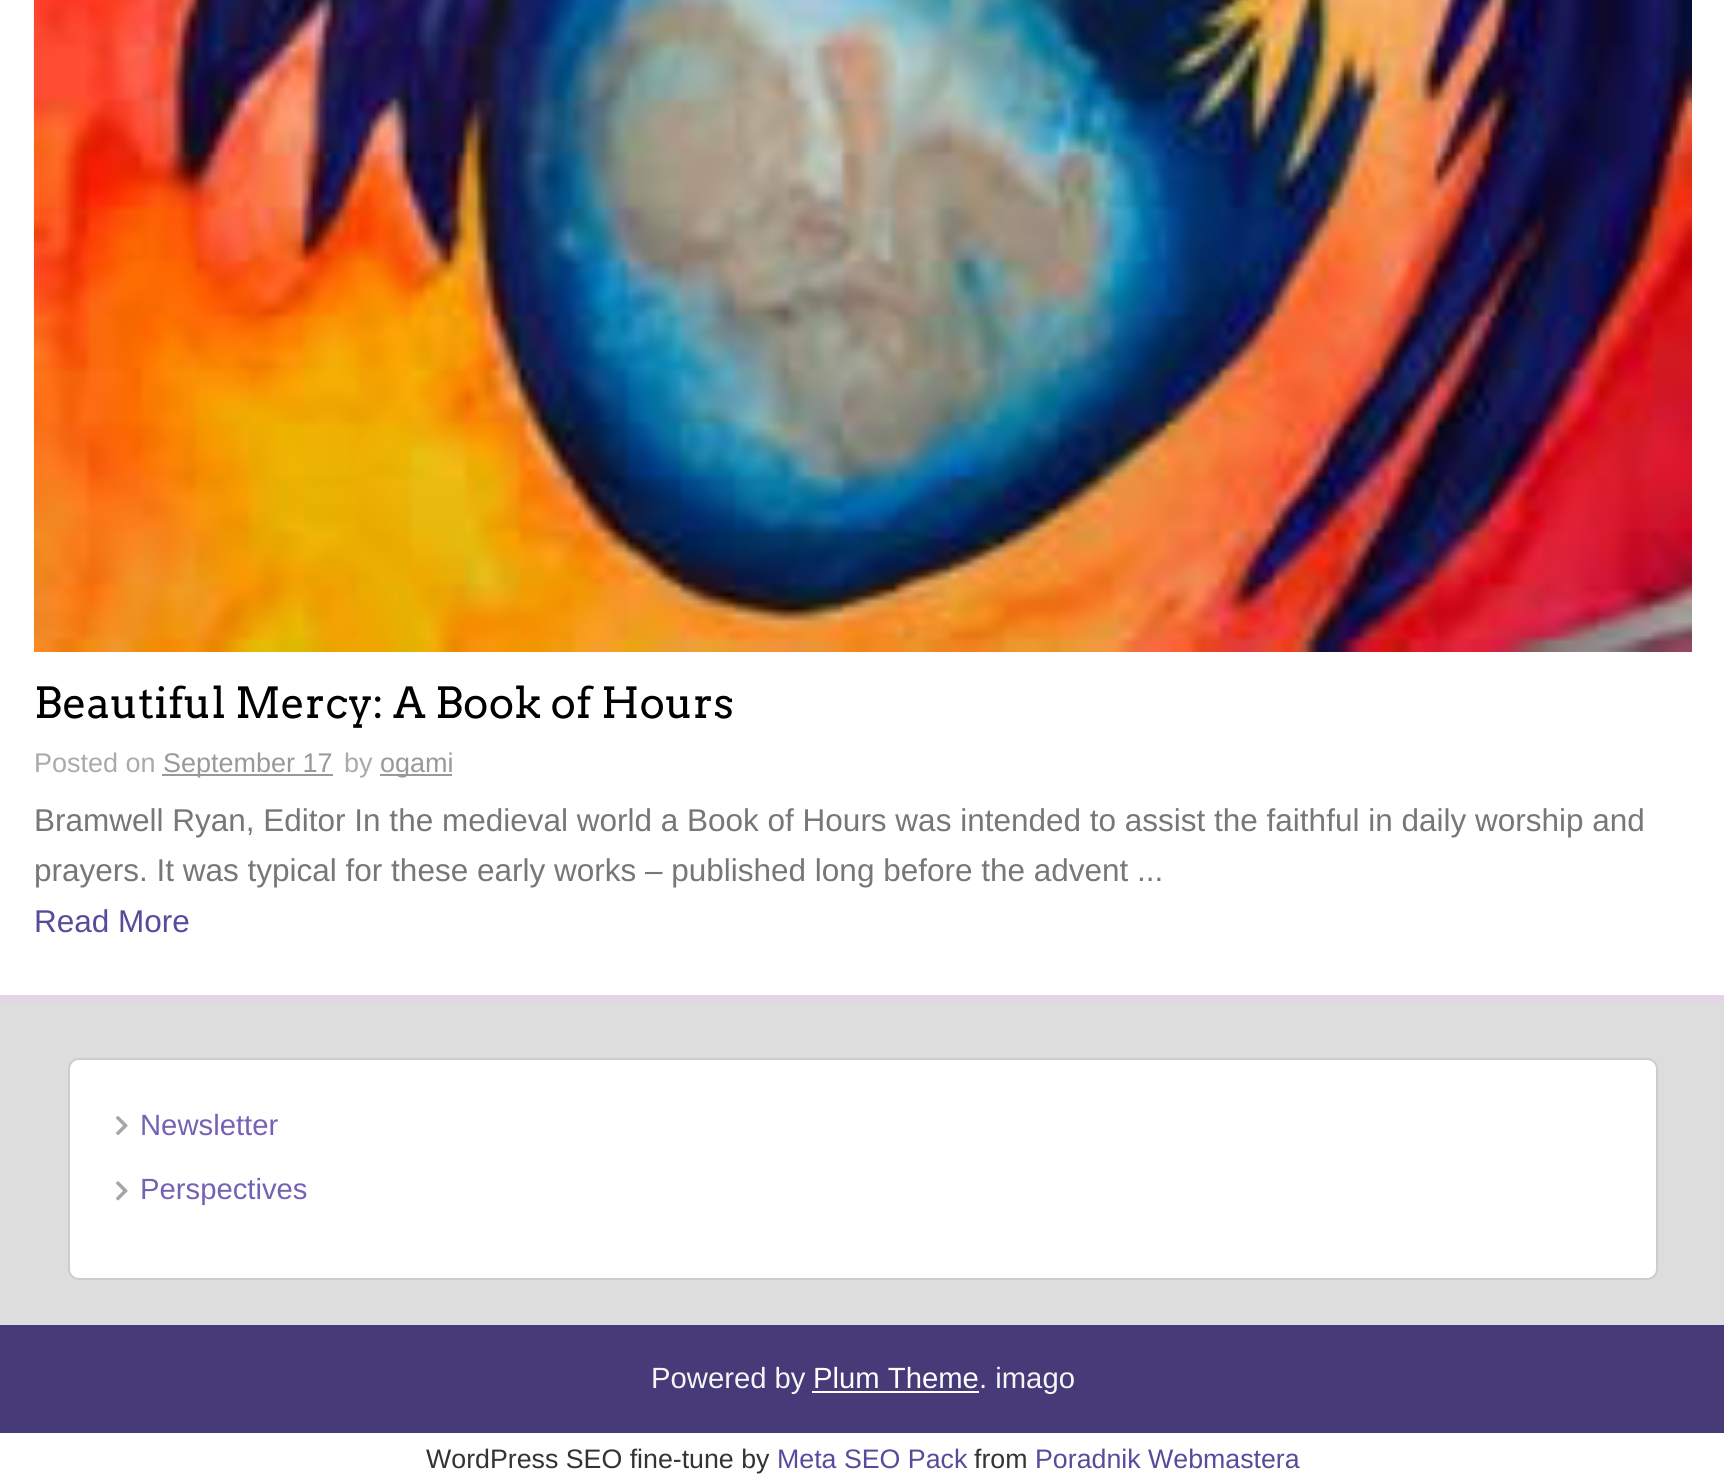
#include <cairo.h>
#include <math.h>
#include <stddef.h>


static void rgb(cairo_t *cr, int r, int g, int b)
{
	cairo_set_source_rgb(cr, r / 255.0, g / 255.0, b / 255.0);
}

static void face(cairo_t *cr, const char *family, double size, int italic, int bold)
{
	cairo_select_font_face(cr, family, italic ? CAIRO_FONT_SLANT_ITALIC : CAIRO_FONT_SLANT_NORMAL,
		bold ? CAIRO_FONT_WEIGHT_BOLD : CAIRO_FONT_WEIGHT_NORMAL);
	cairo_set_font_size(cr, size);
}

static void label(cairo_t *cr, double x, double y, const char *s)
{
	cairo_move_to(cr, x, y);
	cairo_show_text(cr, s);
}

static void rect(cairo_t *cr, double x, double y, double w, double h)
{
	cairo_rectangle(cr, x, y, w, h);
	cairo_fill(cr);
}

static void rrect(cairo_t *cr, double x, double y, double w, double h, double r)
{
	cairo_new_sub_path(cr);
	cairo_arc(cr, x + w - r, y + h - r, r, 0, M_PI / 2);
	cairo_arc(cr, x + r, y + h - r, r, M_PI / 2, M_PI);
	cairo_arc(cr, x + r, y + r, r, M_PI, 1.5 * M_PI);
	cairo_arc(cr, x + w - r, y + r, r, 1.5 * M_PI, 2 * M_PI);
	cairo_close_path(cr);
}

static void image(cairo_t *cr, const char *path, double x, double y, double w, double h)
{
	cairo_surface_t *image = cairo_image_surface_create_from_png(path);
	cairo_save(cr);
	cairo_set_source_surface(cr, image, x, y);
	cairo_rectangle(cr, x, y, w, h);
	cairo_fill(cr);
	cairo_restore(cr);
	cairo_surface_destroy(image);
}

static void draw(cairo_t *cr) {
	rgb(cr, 255, 255, 255);
	cairo_paint(cr);
	image(cr, "image0.png", 33, 0, 1659, 652);
	face(cr, "Arvo", 42.75, 0, 0);
	rgb(cr, 0, 0, 0);
	label(cr, 34, 718, "Beautiful Mercy: A Book of Hours");
	face(cr, "Liberation Sans", 27, 0, 0);
	rgb(cr, 170, 170, 170);
	label(cr, 34, 772, "Posted on");
	rgb(cr, 153, 153, 153);
	rect(cr, 162, 774, 171, 2);
	label(cr, 163, 772, "September 17");
	rgb(cr, 170, 170, 170);
	label(cr, 344, 772, "by");
	rgb(cr, 153, 153, 153);
	rect(cr, 380, 774, 72, 2);
	label(cr, 380, 772, "ogami");
	face(cr, "Liberation Sans", 31.5, 0, 0);
	rgb(cr, 119, 119, 119);
	label(cr, 34, 831, "Bramwell Ryan, Editor In the medieval world a Book of Hours was intended to assist the faithful in daily worship and");
	label(cr, 34, 881, "prayers. It was typical for these early works – published long before the advent ...");
	rgb(cr, 91, 74, 155);
	label(cr, 34, 932, "Read More");
	rgb(cr, 221, 221, 221);
	rect(cr, 0, 1002, 1724, 323);
	rgb(cr, 229, 212, 231);
	rect(cr, 0, 995, 1724, 7);
	rgb(cr, 255, 255, 255);
	rrect(cr, 69, 1059, 1588, 220, 10);
	cairo_fill_preserve(cr);
	rgb(cr, 204, 204, 204);
	cairo_stroke(cr);
	image(cr, "image1.png", 116, 1116, 12, 19);
	face(cr, "Liberation Sans", 29.25, 0, 0);
	rgb(cr, 116, 99, 181);
	label(cr, 140, 1135, "Newsletter");
	image(cr, "image2.png", 116, 1181, 12, 20);
	label(cr, 140, 1199, "Perspectives");
	rgb(cr, 71, 58, 120);
	rect(cr, 0, 1325, 1724, 108);
	rgb(cr, 245, 245, 245);
	label(cr, 651, 1388, "Powered by");
	rgb(cr, 255, 255, 255);
	label(cr, 813, 1388, "Plum Theme");
	rect(cr, 812, 1391, 167, 2);
	rgb(cr, 245, 245, 245);
	label(cr, 979, 1388, ". imago");
	face(cr, "Liberation Sans", 26.75, 0, 0);
	rgb(cr, 51, 51, 51);
	label(cr, 426, 1468, "WordPress SEO fine-tune by");
	rgb(cr, 91, 74, 155);
	label(cr, 777, 1468, "Meta SEO Pack");
	rgb(cr, 51, 51, 51);
	label(cr, 974, 1468, "from");
	rgb(cr, 91, 74, 155);
	label(cr, 1035, 1468, "Poradnik Webmastera");
}

int main(void) {
	cairo_surface_t *surface = cairo_image_surface_create(CAIRO_FORMAT_RGB24, 1724, 1477);
	cairo_t *cr = cairo_create(surface);
	cairo_font_options_t *options = cairo_font_options_create();
	cairo_font_options_set_hint_metrics(options, CAIRO_HINT_METRICS_OFF);
	cairo_font_options_set_hint_style(options, CAIRO_HINT_STYLE_NONE);
	cairo_set_font_options(cr, options);
	cairo_set_miter_limit(cr, 4);
	draw(cr);
	cairo_surface_write_to_png(surface, "render.png");
	cairo_font_options_destroy(options);
	cairo_destroy(cr);
	cairo_surface_destroy(surface);
	return 0;
}
